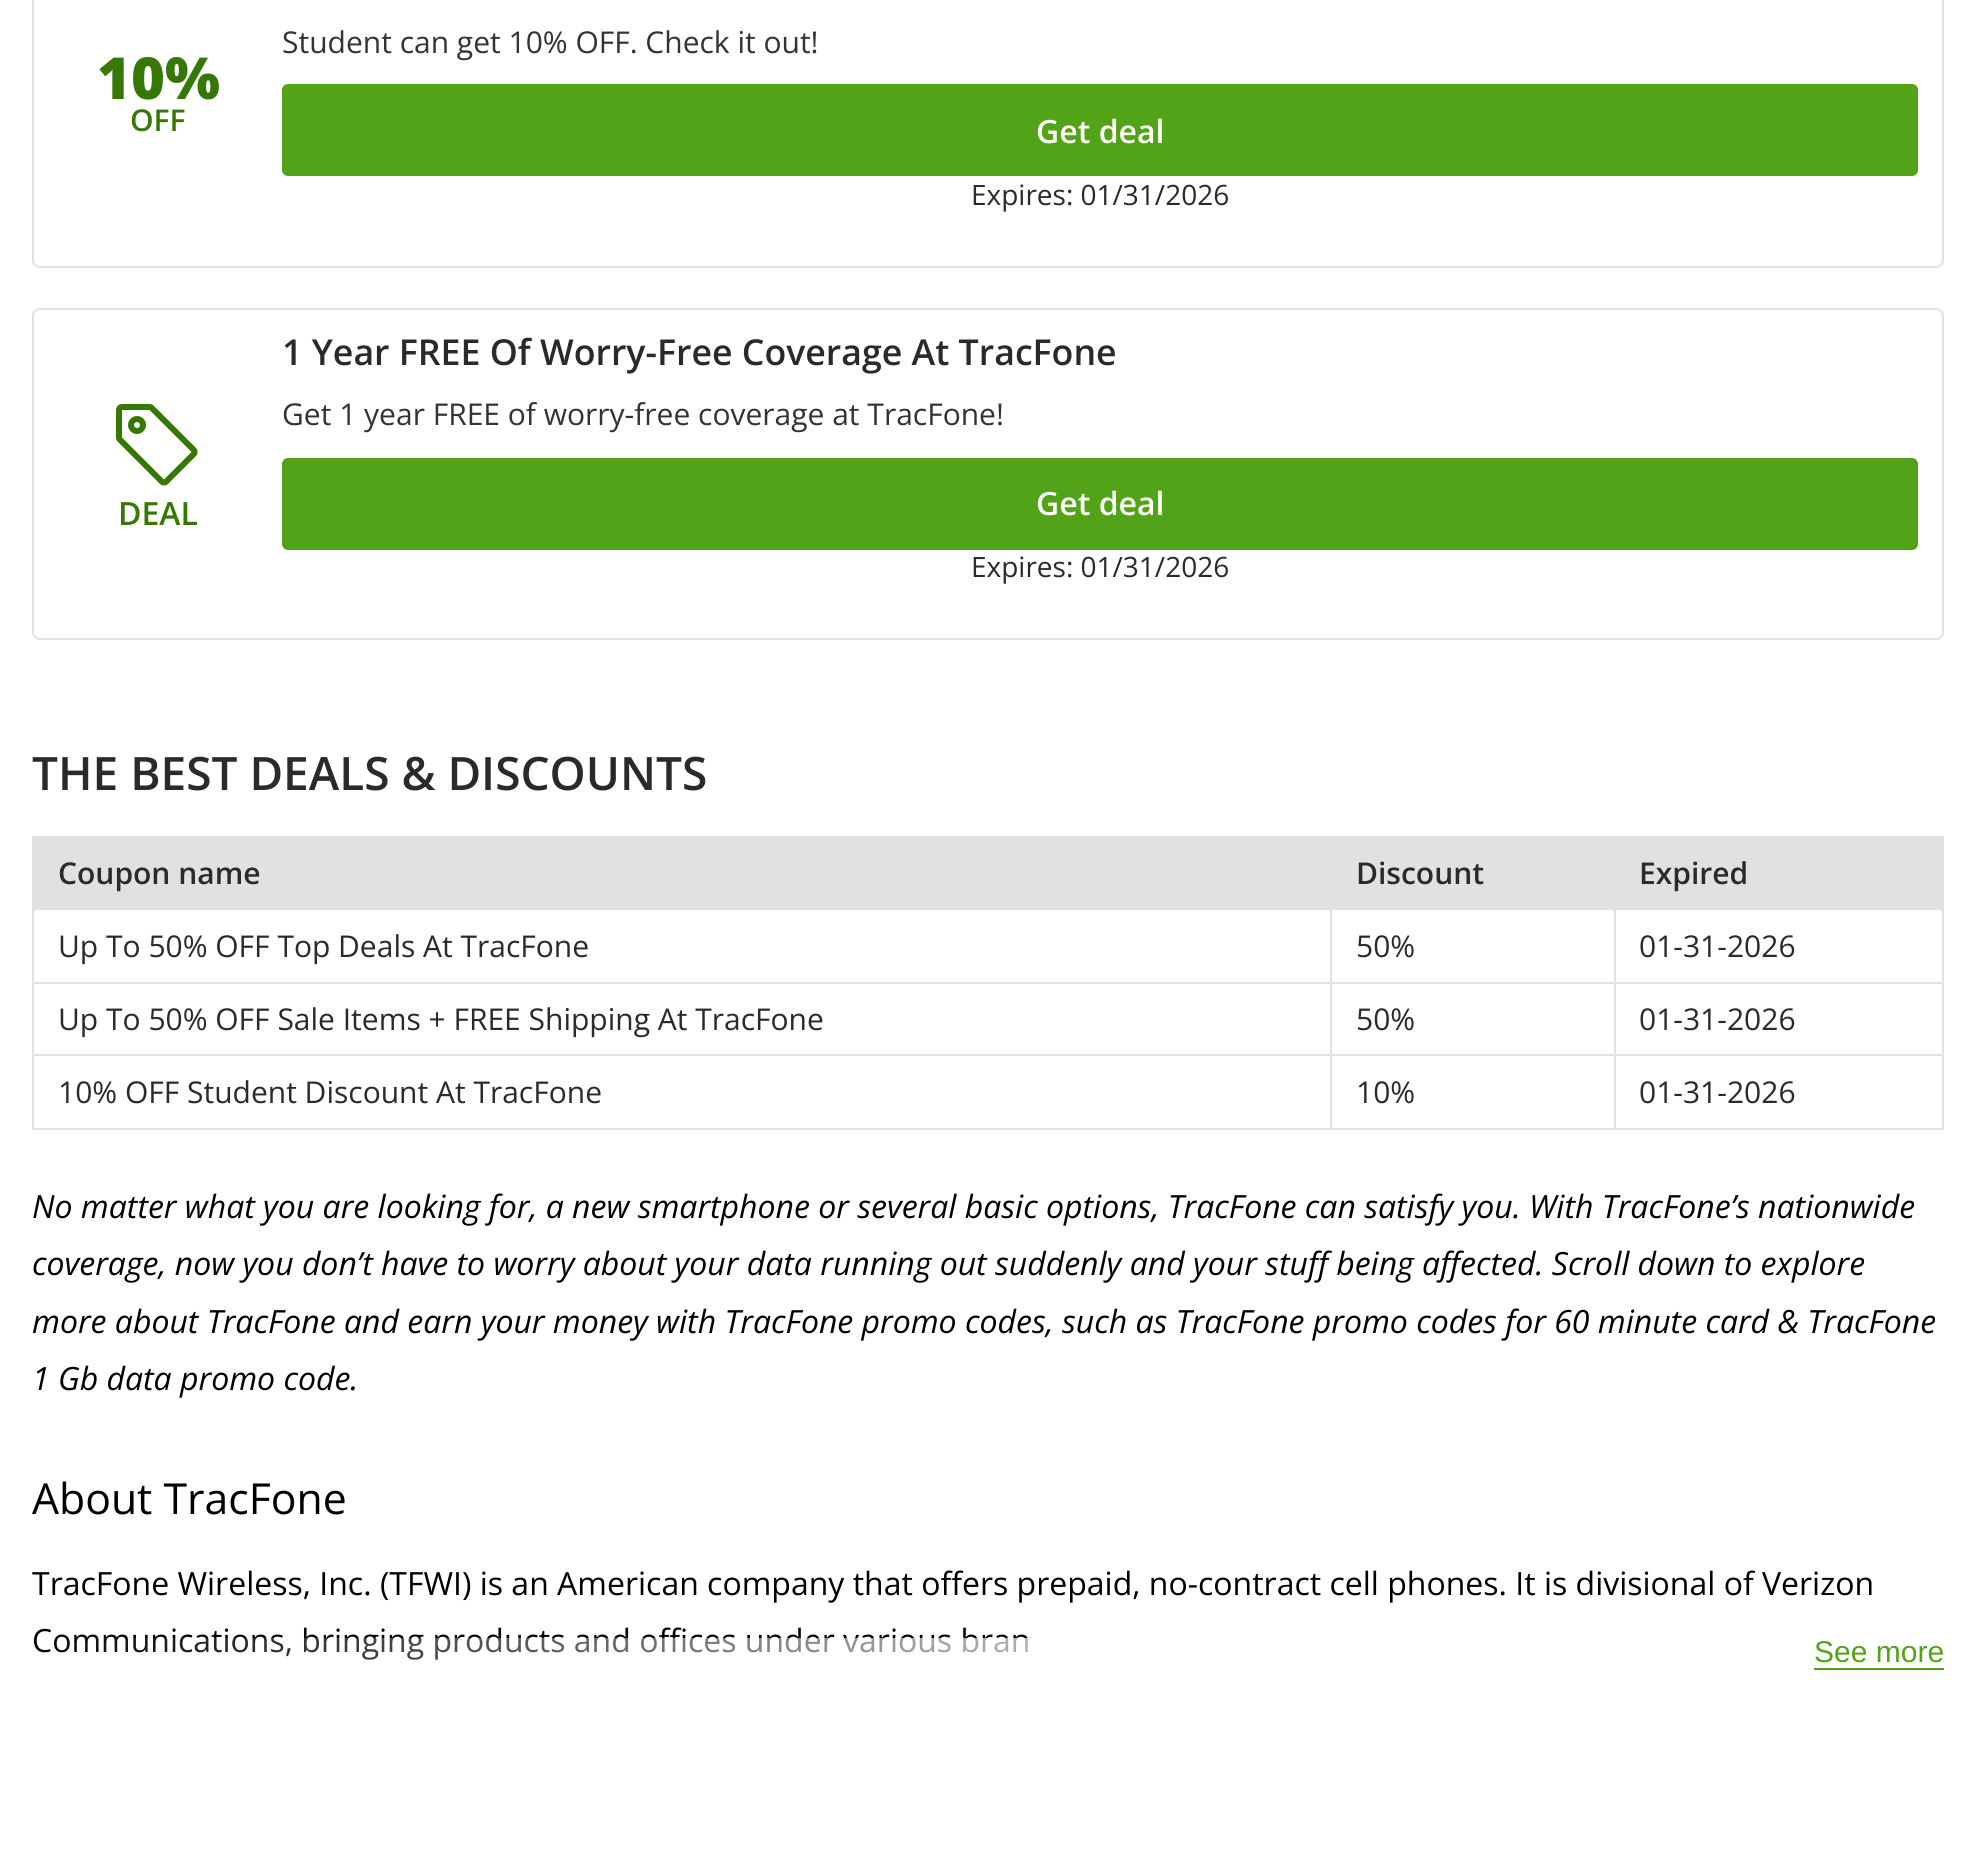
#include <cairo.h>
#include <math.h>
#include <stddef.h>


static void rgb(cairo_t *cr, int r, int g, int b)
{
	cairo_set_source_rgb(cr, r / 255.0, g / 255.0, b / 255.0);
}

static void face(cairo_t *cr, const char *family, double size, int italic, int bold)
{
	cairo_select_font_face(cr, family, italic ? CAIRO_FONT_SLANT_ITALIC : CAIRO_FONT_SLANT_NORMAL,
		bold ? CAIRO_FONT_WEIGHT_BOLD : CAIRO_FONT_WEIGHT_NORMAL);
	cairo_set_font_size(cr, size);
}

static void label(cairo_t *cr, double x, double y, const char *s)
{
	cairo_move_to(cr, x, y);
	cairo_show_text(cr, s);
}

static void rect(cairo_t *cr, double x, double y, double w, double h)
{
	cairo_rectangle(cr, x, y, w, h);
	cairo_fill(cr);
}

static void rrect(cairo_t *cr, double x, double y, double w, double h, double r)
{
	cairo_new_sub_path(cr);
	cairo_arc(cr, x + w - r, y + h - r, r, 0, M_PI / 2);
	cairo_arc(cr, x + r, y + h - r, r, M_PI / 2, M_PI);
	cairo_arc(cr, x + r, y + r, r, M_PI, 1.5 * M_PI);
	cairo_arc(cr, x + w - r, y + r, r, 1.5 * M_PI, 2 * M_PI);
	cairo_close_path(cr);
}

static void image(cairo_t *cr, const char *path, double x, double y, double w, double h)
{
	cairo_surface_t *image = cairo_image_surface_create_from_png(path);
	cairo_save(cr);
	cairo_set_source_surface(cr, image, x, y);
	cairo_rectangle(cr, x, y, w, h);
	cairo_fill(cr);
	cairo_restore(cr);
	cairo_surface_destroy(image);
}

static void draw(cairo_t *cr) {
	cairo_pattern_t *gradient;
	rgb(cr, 255, 255, 255);
	cairo_paint(cr);
	rrect(cr, 33, -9, 1910, 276, 7);
	rgb(cr, 225, 225, 225);
	cairo_stroke(cr);
	face(cr, "Open Sans", 30, 0, 0);
	rgb(cr, 51, 51, 51);
	label(cr, 282, 53, "Student can get 10% OFF. Check it out!");
	face(cr, "Open Sans ExtraBold", 58, 0, 0);
	rgb(cr, 54, 120, 6);
	label(cr, 97, 99, "10%");
	face(cr, "Open Sans SemiBold", 30, 0, 0);
	label(cr, 130, 131, "OFF");
	rgb(cr, 83, 163, 24);
	rrect(cr, 282, 84, 1636, 92, 6);
	cairo_fill(cr);
	face(cr, "Open Sans SemiBold", 32, 0, 0);
	rgb(cr, 255, 255, 255);
	label(cr, 1036, 143, "Get deal");
	face(cr, "Open Sans", 28, 0, 0);
	rgb(cr, 42, 42, 42);
	label(cr, 971, 205, "Expires: 01/31/2026");
	rrect(cr, 33, 309, 1910, 330, 7);
	rgb(cr, 225, 225, 225);
	cairo_stroke(cr);
	face(cr, "Open Sans SemiBold", 35.7, 0, 0);
	rgb(cr, 42, 42, 42);
	label(cr, 282, 365, "1 Year FREE Of Worry-Free Coverage At TracFone");
	face(cr, "Open Sans", 30, 0, 0);
	rgb(cr, 51, 51, 51);
	label(cr, 282, 425, "Get 1 year FREE of worry-free coverage at TracFone!");
	image(cr, "image0.png", 116, 404, 82, 82);
	face(cr, "Open Sans SemiBold", 32, 0, 0);
	rgb(cr, 54, 120, 6);
	label(cr, 118, 525, "DEAL");
	rgb(cr, 83, 163, 24);
	rrect(cr, 282, 458, 1636, 92, 6);
	cairo_fill(cr);
	rgb(cr, 255, 255, 255);
	label(cr, 1036, 515, "Get deal");
	face(cr, "Open Sans", 28, 0, 0);
	rgb(cr, 42, 42, 42);
	label(cr, 971, 577, "Expires: 01/31/2026");
	face(cr, "Open Sans SemiBold", 46, 0, 0);
	label(cr, 32, 790, "THE BEST DEALS & DISCOUNTS");
	rgb(cr, 225, 225, 225);
	rect(cr, 32, 836, 1912, 2);
	rect(cr, 1942, 836, 2, 294);
	rect(cr, 32, 1128, 1912, 2);
	rect(cr, 32, 836, 2, 294);
	rect(cr, 34, 838, 1908, 72);
	face(cr, "Open Sans SemiBold", 30, 0, 0);
	rgb(cr, 42, 42, 42);
	label(cr, 58, 884, "Coupon name");
	label(cr, 1356, 884, "Discount");
	label(cr, 1639, 884, "Expired");
	face(cr, "Open Sans", 30, 0, 0);
	label(cr, 58, 957, "Up To 50% OFF Top Deals At TracFone");
	rgb(cr, 225, 225, 225);
	rect(cr, 1614, 982, 330, 2);
	rect(cr, 1614, 1054, 330, 2);
	rect(cr, 1614, 1054, 2, 76);
	rect(cr, 1330, 1054, 286, 2);
	rect(cr, 1614, 982, 2, 74);
	rect(cr, 1330, 982, 286, 2);
	rect(cr, 1330, 1054, 2, 76);
	rect(cr, 32, 1054, 1300, 2);
	rect(cr, 1330, 982, 2, 74);
	rect(cr, 32, 982, 1300, 2);
	rect(cr, 1330, 908, 2, 76);
	rgb(cr, 42, 42, 42);
	label(cr, 1356, 957, "50%");
	rgb(cr, 225, 225, 225);
	rect(cr, 1614, 908, 2, 76);
	rgb(cr, 42, 42, 42);
	label(cr, 1639, 957, "01-31-2026");
	label(cr, 58, 1030, "Up To 50% OFF Sale Items + FREE Shipping At TracFone");
	label(cr, 1356, 1030, "50%");
	label(cr, 1639, 1030, "01-31-2026");
	label(cr, 58, 1103, "10% OFF Student Discount At TracFone");
	label(cr, 1356, 1103, "10%");
	label(cr, 1639, 1103, "01-31-2026");
	face(cr, "Open Sans", 32, 1, 0);
	rgb(cr, 0, 0, 0);
	label(cr, 32, 1218, "No matter what you are looking for, a new smartphone or several basic options, TracFone can satisfy you. With TracFone’s nationwide");
	label(cr, 32, 1275, "coverage, now you don’t have to worry about your data running out suddenly and your stuff being affected. Scroll down to explore");
	label(cr, 32, 1333, "more about TracFone and earn your money with TracFone promo codes, such as TracFone promo codes for 60 minute card & TracFone");
	label(cr, 32, 1390, "1 Gb data promo code.");
	face(cr, "Open Sans", 42.75, 0, 0);
	label(cr, 32, 1514, "About TracFone");
	face(cr, "Open Sans", 32, 0, 0);
	label(cr, 32, 1595, "TracFone Wireless, Inc. (TFWI) is an American company that offers prepaid, no-contract cell phones. It is divisional of Verizon");
	label(cr, 32, 1652, "Communications, bringing products and offices under various bran");
	gradient = cairo_pattern_create_linear(500, 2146, 1476, 1170);
	cairo_pattern_add_color_stop_rgba(gradient, 0, 1, 1, 1, 0);
	cairo_pattern_add_color_stop_rgba(gradient, 0.76, 1, 1, 1, 1);
	cairo_set_source(cr, gradient);
	cairo_pattern_destroy(gradient);
	rect(cr, 34, 1638, 994, 22);
	rgb(cr, 83, 163, 24);
	rect(cr, 1814, 1668, 130, 2);
	face(cr, "Liberation Sans", 30, 0, 0);
	label(cr, 1814, 1662, "See more");
}

int main(void) {
	cairo_surface_t *surface = cairo_image_surface_create(CAIRO_FORMAT_RGB24, 1976, 1861);
	cairo_t *cr = cairo_create(surface);
	cairo_font_options_t *options = cairo_font_options_create();
	cairo_font_options_set_hint_metrics(options, CAIRO_HINT_METRICS_OFF);
	cairo_font_options_set_hint_style(options, CAIRO_HINT_STYLE_NONE);
	cairo_set_font_options(cr, options);
	cairo_set_miter_limit(cr, 4);
	draw(cr);
	cairo_surface_write_to_png(surface, "render.png");
	cairo_font_options_destroy(options);
	cairo_destroy(cr);
	cairo_surface_destroy(surface);
	return 0;
}
